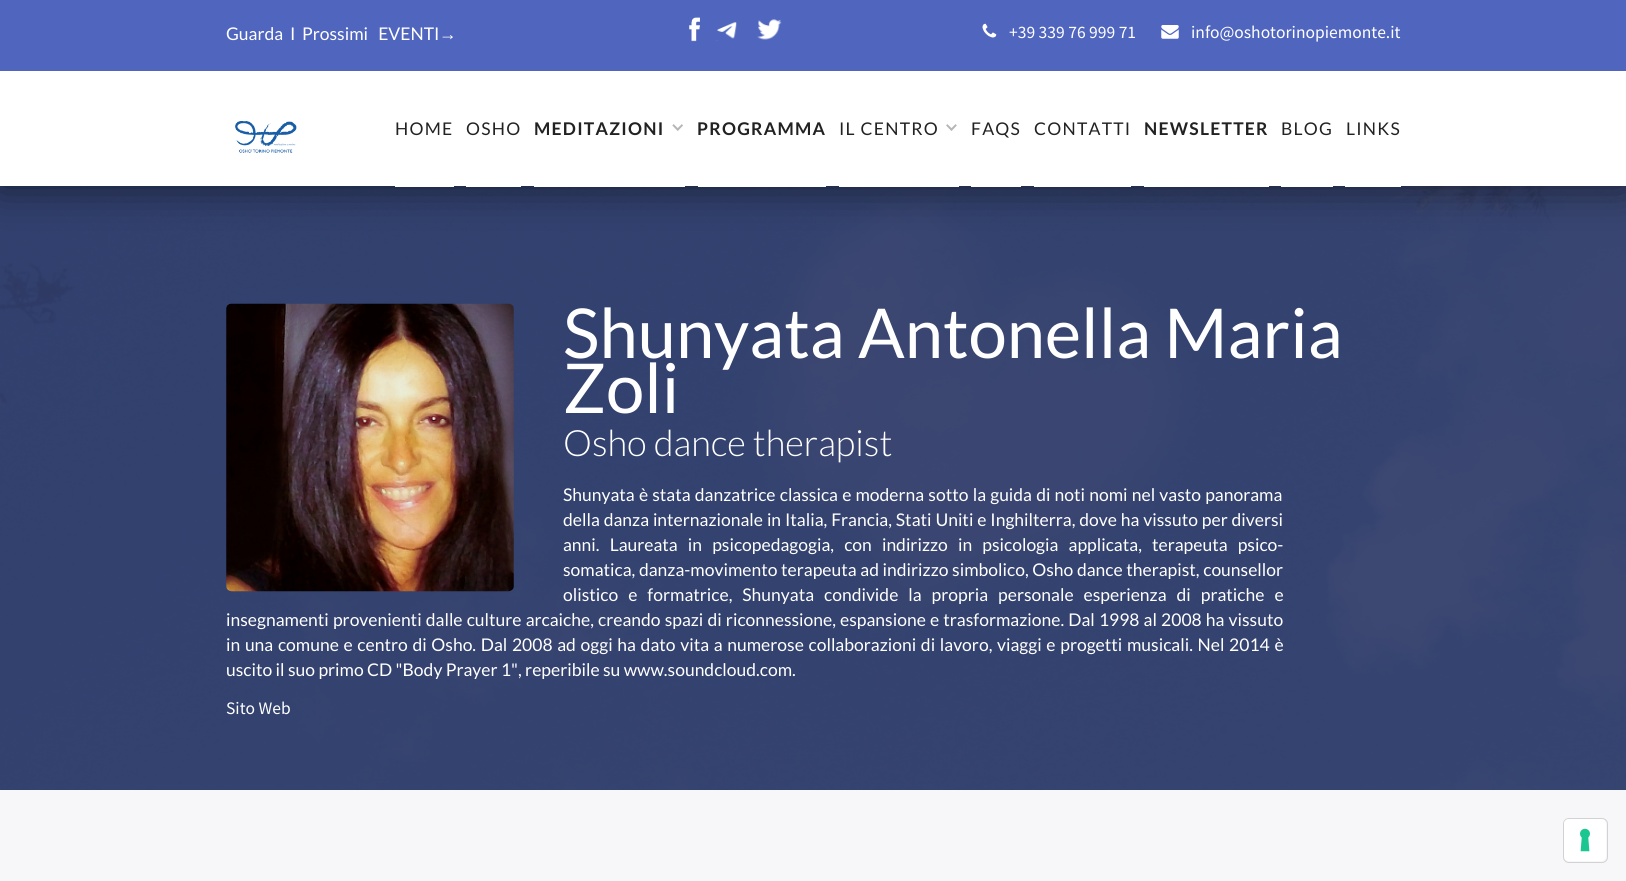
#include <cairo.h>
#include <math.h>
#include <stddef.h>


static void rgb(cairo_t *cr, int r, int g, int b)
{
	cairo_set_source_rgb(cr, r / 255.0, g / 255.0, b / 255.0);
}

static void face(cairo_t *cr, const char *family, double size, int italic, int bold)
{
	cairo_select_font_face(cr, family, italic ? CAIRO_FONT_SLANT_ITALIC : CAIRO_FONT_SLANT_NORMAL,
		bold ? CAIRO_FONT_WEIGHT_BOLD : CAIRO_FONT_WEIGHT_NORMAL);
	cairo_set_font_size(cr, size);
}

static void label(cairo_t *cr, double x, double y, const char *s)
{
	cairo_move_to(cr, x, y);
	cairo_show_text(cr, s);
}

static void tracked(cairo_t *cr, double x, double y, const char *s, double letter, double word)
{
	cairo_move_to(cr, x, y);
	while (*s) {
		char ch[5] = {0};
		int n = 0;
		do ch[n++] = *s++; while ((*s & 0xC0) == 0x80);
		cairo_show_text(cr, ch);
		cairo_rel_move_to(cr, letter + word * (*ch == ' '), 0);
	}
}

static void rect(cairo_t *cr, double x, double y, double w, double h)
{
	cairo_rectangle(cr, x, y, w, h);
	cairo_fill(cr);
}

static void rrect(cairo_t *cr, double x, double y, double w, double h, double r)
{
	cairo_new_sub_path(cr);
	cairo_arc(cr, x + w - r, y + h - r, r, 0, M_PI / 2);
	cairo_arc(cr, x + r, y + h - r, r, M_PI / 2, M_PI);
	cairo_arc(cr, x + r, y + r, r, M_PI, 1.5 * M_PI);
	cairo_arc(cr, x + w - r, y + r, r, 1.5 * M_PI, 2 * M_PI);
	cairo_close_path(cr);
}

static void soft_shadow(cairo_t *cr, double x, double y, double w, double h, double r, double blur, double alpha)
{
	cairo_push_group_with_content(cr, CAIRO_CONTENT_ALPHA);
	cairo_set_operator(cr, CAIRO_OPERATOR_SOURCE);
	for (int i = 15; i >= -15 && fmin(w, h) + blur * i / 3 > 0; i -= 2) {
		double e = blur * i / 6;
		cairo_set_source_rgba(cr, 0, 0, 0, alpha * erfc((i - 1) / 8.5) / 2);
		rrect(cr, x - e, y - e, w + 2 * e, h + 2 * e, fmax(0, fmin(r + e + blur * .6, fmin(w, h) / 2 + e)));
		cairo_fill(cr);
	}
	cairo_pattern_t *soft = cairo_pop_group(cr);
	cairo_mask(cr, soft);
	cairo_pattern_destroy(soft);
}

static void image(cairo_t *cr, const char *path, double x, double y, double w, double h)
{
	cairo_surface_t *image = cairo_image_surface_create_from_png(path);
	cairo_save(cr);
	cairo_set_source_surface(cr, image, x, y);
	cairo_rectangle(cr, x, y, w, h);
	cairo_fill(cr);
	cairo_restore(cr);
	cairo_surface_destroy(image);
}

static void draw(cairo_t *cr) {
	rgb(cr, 255, 255, 255);
	cairo_paint(cr);
	image(cr, "image8.png", 0, 186, 1626, 604);
	rgb(cr, 0, 0, 0);
	soft_shadow(cr, 0, 0, 1626, 186, 0, 20.5, 0.6);
	rgb(cr, 79, 101, 190);
	rect(cr, 0, 0, 1626, 71);
	face(cr, "Lato", 17.5, 0, 0);
	rgb(cr, 255, 255, 255);
	label(cr, 226, 40, "Guarda  I  Prossimi   EVENTI");
	face(cr, "Liberation Sans", 17.5, 0, 0);
	label(cr, 439, 40, "→");
	image(cr, "image0.png", 689, 17, 11, 25);
	image(cr, "image1.png", 716, 22, 21, 19);
	image(cr, "image2.png", 757, 19, 25, 21);
	image(cr, "image3.png", 982, 23, 15, 15);
	face(cr, "Source Sans Pro", 17.5, 0, 0);
	label(cr, 1009, 38, "+39 339 76 999 71");
	image(cr, "image4.png", 1161, 25, 18, 14);
	label(cr, 1191, 38, "info@oshotorinopiemonte.it");
	rect(cr, 0, 71, 1626, 115);
	image(cr, "image5.png", 235, 121, 62, 32);
	rect(cr, 395, 186, 59, 1);
	face(cr, "Lato", 17.5, 0, 0);
	rgb(cr, 34, 34, 34);
	tracked(cr, 395, 135, "HOME", 1.25, 0);
	rgb(cr, 255, 255, 255);
	rect(cr, 466, 186, 55, 1);
	rgb(cr, 34, 34, 34);
	tracked(cr, 466, 135, "OSHO", 1.25, 0);
	rgb(cr, 255, 255, 255);
	rect(cr, 534, 186, 151, 1);
	face(cr, "Lato", 17.5, 0, 1);
	rgb(cr, 34, 34, 34);
	tracked(cr, 534, 135, "MEDITAZIONI", 1.25, 0);
	image(cr, "image6.png", 672, 124, 11, 7);
	rgb(cr, 255, 255, 255);
	rect(cr, 698, 186, 128, 1);
	rgb(cr, 34, 34, 34);
	tracked(cr, 697, 135, "PROGRAMMA", 1.25, 0);
	rgb(cr, 255, 255, 255);
	rect(cr, 839, 186, 120, 1);
	face(cr, "Lato", 17.5, 0, 0);
	rgb(cr, 34, 34, 34);
	tracked(cr, 839, 135, "IL CENTRO", 1.25, 0);
	image(cr, "image7.png", 946, 124, 11, 7);
	rgb(cr, 255, 255, 255);
	rect(cr, 971, 186, 50, 1);
	rgb(cr, 34, 34, 34);
	tracked(cr, 971, 135, "FAQS", 1.25, 0);
	rgb(cr, 255, 255, 255);
	rect(cr, 1034, 186, 97, 1);
	rgb(cr, 34, 34, 34);
	tracked(cr, 1034, 135, "CONTATTI", 1.25, 0);
	rgb(cr, 255, 255, 255);
	rect(cr, 1144, 186, 125, 1);
	face(cr, "Lato", 17.5, 0, 1);
	rgb(cr, 34, 34, 34);
	tracked(cr, 1144, 135, "NEWSLETTER", 1.25, 0);
	rgb(cr, 255, 255, 255);
	rect(cr, 1281, 186, 52, 1);
	face(cr, "Lato", 17.5, 0, 0);
	rgb(cr, 34, 34, 34);
	tracked(cr, 1281, 135, "BLOG", 1.25, 0);
	rgb(cr, 255, 255, 255);
	rect(cr, 1345, 186, 56, 1);
	rgb(cr, 34, 34, 34);
	tracked(cr, 1346, 135, "LINKS", 1.25, 0);
	image(cr, "image9.png", 226, 303, 288, 289);
	face(cr, "Lato", 68.75, 0, 0);
	rgb(cr, 255, 255, 255);
	label(cr, 563, 358, "Shunyata Antonella Maria");
	label(cr, 563, 413, "Zoli");
	face(cr, "Lato Light", 36.25, 0, 0);
	label(cr, 563, 456, "Osho dance therapist");
	face(cr, "Lato", 17.5, 0, 0);
	tracked(cr, 563, 501, "Shunyata è stata danzatrice classica e moderna sotto la guida di noti nomi nel vasto panorama", 0, 0.8);
	tracked(cr, 563, 526, "della danza internazionale in Italia, Francia, Stati Uniti e Inghilterra, dove ha vissuto per diversi", 0, 0.5);
	tracked(cr, 563, 551, "anni. Laureata in psicopedagogia, con indirizzo in psicologia applicata, terapeuta psico-", 0, 6.75);
	tracked(cr, 563, 576, "somatica, danza-movimento terapeuta ad indirizzo simbolico, Osho dance therapist, counsellor", 0, 0.25);
	tracked(cr, 563, 601, "olistico e formatrice, Shunyata condivide la propria personale esperienza di pratiche e", 0, 6.6);
	tracked(cr, 226, 626, "insegnamenti provenienti dalle culture arcaiche, creando spazi di riconnessione, espansione e trasformazione. Dal 1998 al 2008 ha vissuto", 0, 0.75);
	tracked(cr, 226, 651, "in una comune e centro di Osho. Dal 2008 ad oggi ha dato vita a numerose collaborazioni di lavoro, viaggi e progetti musicali. Nel 2014 è", 0, 1.3);
	label(cr, 226, 676, "uscito il suo primo CD \"Body Prayer 1\", reperibile su www.soundcloud.com.");
	face(cr, "Source Sans Pro", 17.5, 0, 0);
	label(cr, 226, 714, "Sito Web");
	rgb(cr, 247, 247, 250);
	rect(cr, 0, 790, 1626, 91);
	rrect(cr, 1563.5, 818.5, 44, 44, 5.5);
	rgb(cr, 210, 210, 213);
	cairo_set_line_width(cr, 1);
	cairo_stroke(cr);
	rgb(cr, 255, 255, 255);
	rrect(cr, 1564, 819, 42, 42, 5);
	cairo_fill(cr);
	image(cr, "image10.png", 1580, 828, 10, 24);
}

int main(void) {
	cairo_surface_t *surface = cairo_image_surface_create(CAIRO_FORMAT_RGB24, 1626, 881);
	cairo_t *cr = cairo_create(surface);
	cairo_font_options_t *options = cairo_font_options_create();
	cairo_font_options_set_hint_metrics(options, CAIRO_HINT_METRICS_OFF);
	cairo_font_options_set_hint_style(options, CAIRO_HINT_STYLE_NONE);
	cairo_set_font_options(cr, options);
	cairo_set_miter_limit(cr, 4);
	draw(cr);
	cairo_surface_write_to_png(surface, "render.png");
	cairo_font_options_destroy(options);
	cairo_destroy(cr);
	cairo_surface_destroy(surface);
	return 0;
}
